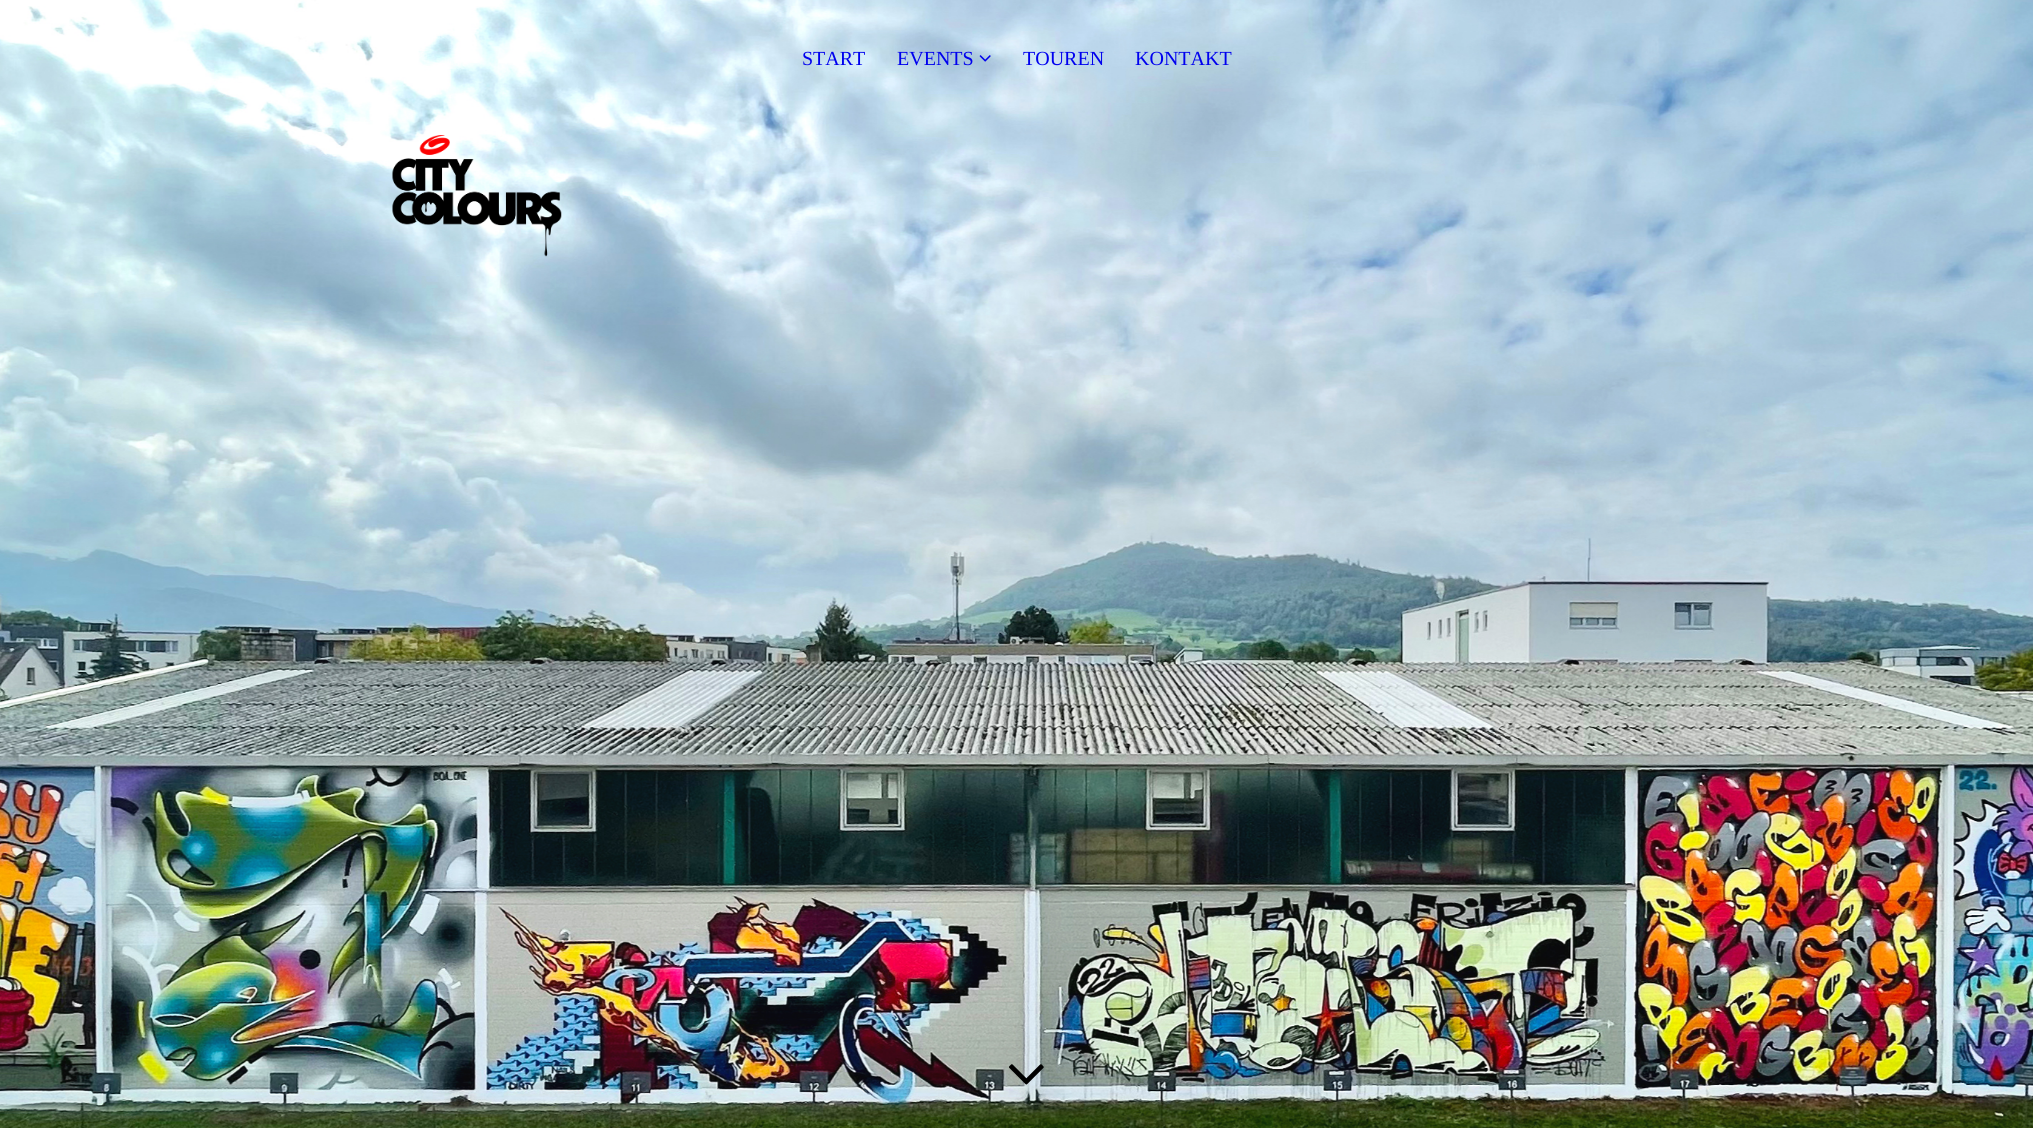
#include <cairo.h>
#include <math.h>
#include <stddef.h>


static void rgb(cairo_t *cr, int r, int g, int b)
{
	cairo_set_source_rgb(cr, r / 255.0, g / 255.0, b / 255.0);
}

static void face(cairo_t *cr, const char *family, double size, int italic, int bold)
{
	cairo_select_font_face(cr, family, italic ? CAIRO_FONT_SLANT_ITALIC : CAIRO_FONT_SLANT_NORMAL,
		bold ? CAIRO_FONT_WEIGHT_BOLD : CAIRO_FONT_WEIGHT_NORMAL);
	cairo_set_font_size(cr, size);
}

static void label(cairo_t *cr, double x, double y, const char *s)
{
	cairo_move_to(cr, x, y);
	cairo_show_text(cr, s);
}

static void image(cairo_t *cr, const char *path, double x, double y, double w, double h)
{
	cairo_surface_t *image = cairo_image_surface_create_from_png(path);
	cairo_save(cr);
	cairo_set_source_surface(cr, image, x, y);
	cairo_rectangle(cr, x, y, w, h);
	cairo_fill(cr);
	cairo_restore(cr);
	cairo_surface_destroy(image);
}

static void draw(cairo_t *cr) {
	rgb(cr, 255, 255, 255);
	cairo_paint(cr);
	image(cr, "image0.png", 0, 0, 2033, 1128);
	image(cr, "image1.png", 392, 135, 170, 122);
	image(cr, "image2.png", 1009, 1064, 35, 21);
	face(cr, "Liberation Serif", 20, 0, 0);
	rgb(cr, 0, 0, 238);
	label(cr, 802, 65, "START");
	label(cr, 897, 65, "EVENTS");
	image(cr, "image3.png", 979, 55, 12, 7);
	label(cr, 1023, 65, "TOUREN");
	label(cr, 1135, 65, "KONTAKT");
}

int main(void) {
	cairo_surface_t *surface = cairo_image_surface_create(CAIRO_FORMAT_RGB24, 2033, 1128);
	cairo_t *cr = cairo_create(surface);
	cairo_font_options_t *options = cairo_font_options_create();
	cairo_font_options_set_hint_metrics(options, CAIRO_HINT_METRICS_OFF);
	cairo_font_options_set_hint_style(options, CAIRO_HINT_STYLE_NONE);
	cairo_set_font_options(cr, options);
	cairo_set_miter_limit(cr, 4);
	draw(cr);
	cairo_surface_write_to_png(surface, "render.png");
	cairo_font_options_destroy(options);
	cairo_destroy(cr);
	cairo_surface_destroy(surface);
	return 0;
}
